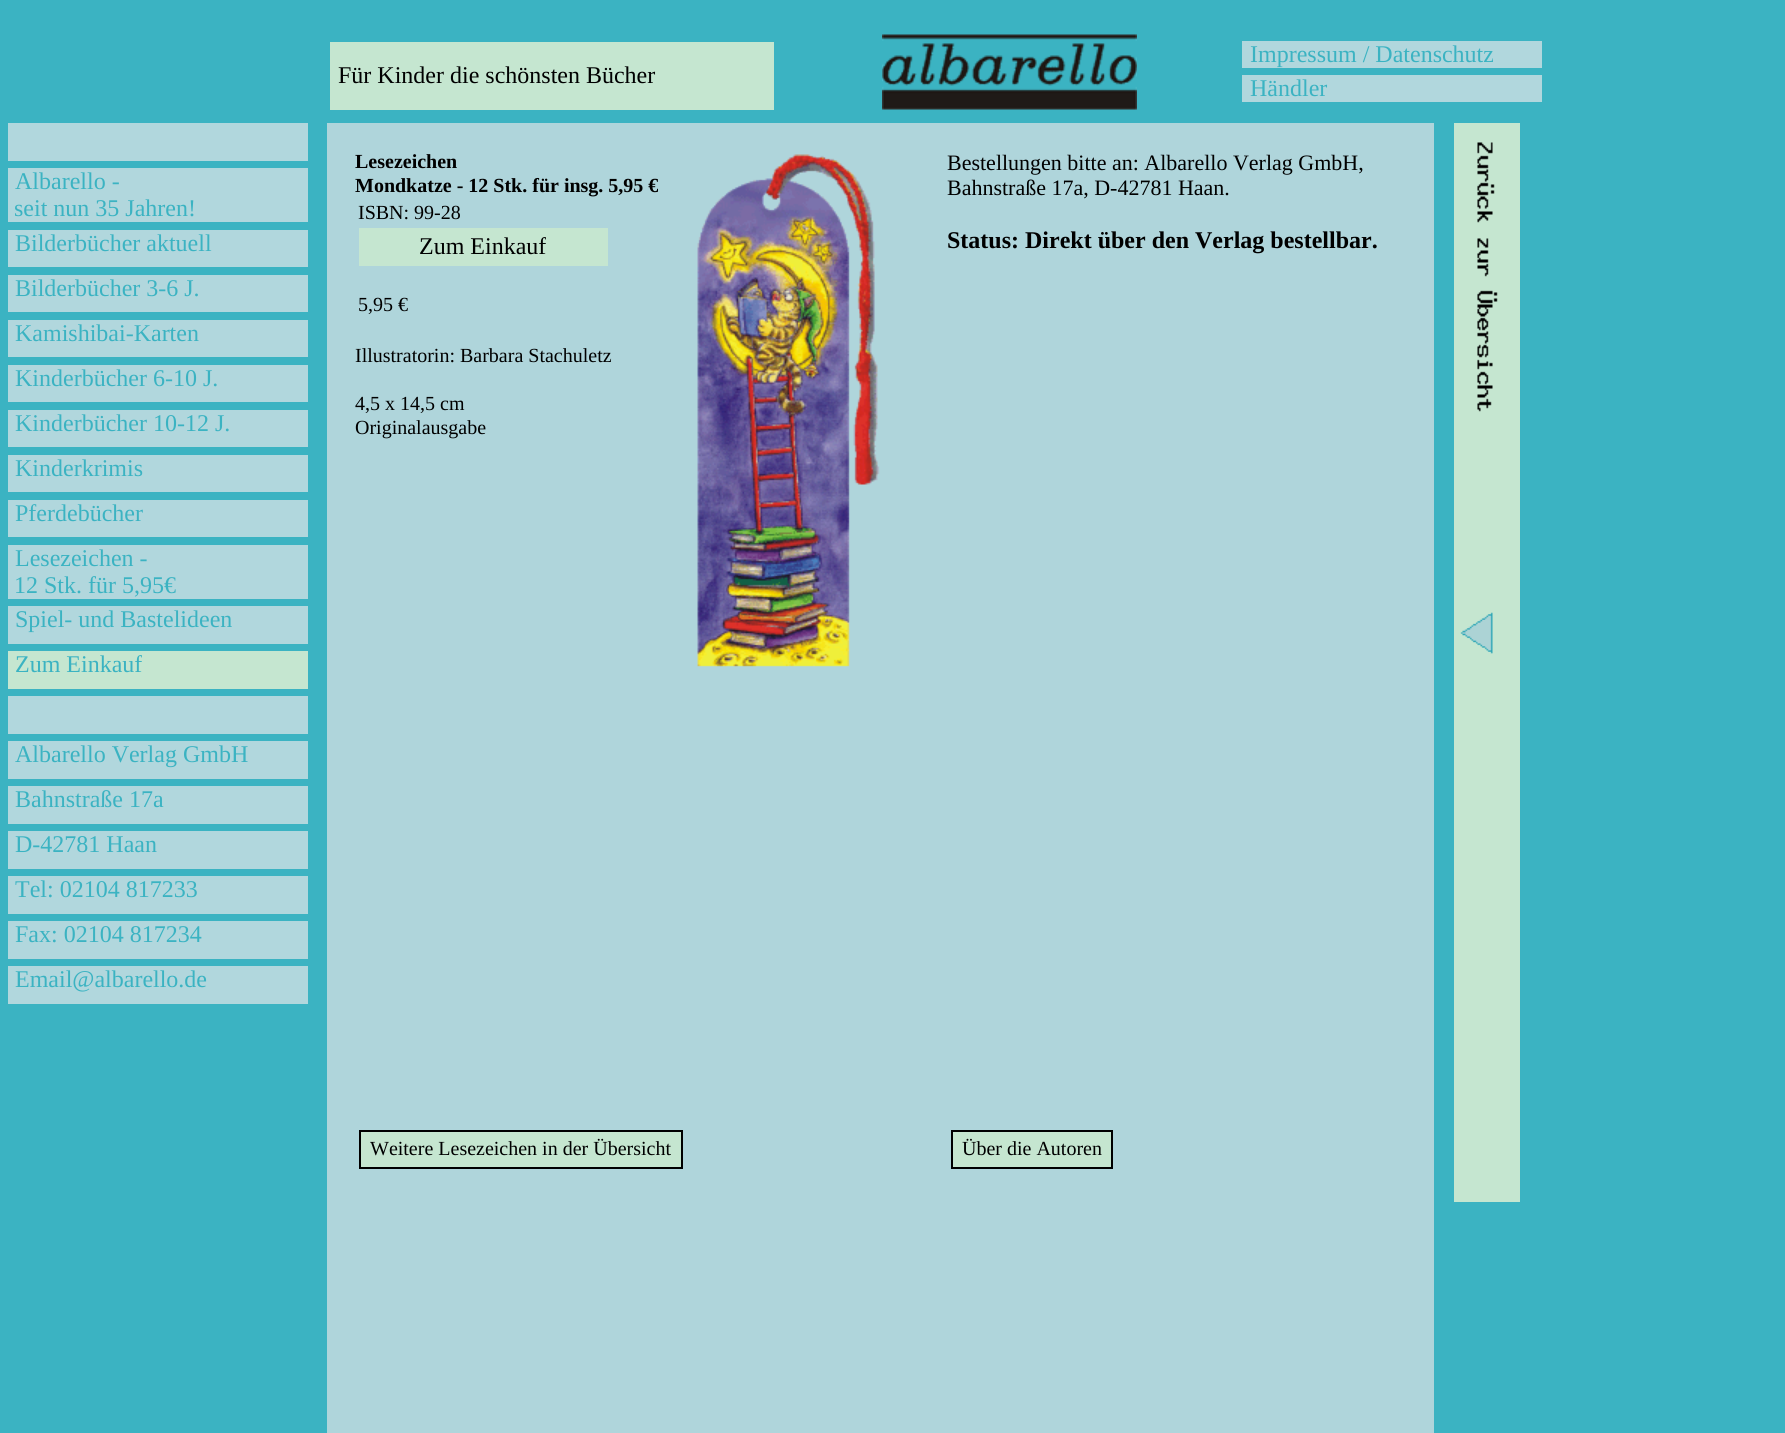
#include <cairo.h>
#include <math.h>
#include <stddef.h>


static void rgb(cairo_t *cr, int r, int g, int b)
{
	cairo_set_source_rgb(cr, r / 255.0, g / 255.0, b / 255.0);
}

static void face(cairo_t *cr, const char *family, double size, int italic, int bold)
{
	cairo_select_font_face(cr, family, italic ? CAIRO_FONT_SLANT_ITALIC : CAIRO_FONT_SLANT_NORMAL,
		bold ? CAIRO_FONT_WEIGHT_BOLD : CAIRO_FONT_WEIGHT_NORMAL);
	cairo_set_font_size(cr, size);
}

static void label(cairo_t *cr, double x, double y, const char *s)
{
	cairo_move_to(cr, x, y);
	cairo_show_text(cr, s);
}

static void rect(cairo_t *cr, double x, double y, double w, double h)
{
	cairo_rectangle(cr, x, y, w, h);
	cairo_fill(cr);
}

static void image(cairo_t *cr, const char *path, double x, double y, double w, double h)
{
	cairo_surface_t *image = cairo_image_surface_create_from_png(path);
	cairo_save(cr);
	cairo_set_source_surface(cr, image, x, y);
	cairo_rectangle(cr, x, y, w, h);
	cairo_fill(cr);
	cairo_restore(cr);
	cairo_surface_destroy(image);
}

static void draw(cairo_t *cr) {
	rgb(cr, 59, 179, 194);
	cairo_paint(cr);
	rgb(cr, 197, 230, 208);
	rect(cr, 330, 42, 444, 68);
	face(cr, "Liberation Serif", 24, 0, 0);
	rgb(cr, 0, 0, 0);
	label(cr, 338, 83, "Für Kinder die schönsten Bücher");
	image(cr, "image0.png", 882, 34, 255, 76);
	rgb(cr, 177, 215, 221);
	rect(cr, 1242, 41, 300, 27);
	rgb(cr, 59, 179, 194);
	label(cr, 1250, 62, "Impressum / Datenschutz");
	rgb(cr, 177, 215, 221);
	rect(cr, 1242, 75, 300, 27);
	rgb(cr, 59, 179, 194);
	label(cr, 1250, 96, "Händler");
	rgb(cr, 177, 215, 221);
	rect(cr, 8, 123, 300, 38);
	rect(cr, 8, 168, 300, 54);
	rgb(cr, 59, 179, 194);
	label(cr, 15, 189, "Albarello -");
	label(cr, 14, 216, "seit nun 35 Jahren!");
	rgb(cr, 177, 215, 221);
	rect(cr, 8, 230, 300, 37);
	rgb(cr, 59, 179, 194);
	label(cr, 15, 251, "Bilderbücher aktuell");
	rgb(cr, 177, 215, 221);
	rect(cr, 8, 275, 300, 37);
	rgb(cr, 59, 179, 194);
	label(cr, 15, 296, "Bilderbücher 3-6 J.");
	rgb(cr, 177, 215, 221);
	rect(cr, 8, 320, 300, 37);
	rgb(cr, 59, 179, 194);
	label(cr, 15, 341, "Kamishibai-Karten");
	rgb(cr, 177, 215, 221);
	rect(cr, 8, 365, 300, 37);
	rgb(cr, 59, 179, 194);
	label(cr, 15, 386, "Kinderbücher 6-10 J.");
	rgb(cr, 177, 215, 221);
	rect(cr, 8, 410, 300, 37);
	rgb(cr, 59, 179, 194);
	label(cr, 15, 431, "Kinderbücher 10-12 J.");
	rgb(cr, 177, 215, 221);
	rect(cr, 8, 455, 300, 37);
	rgb(cr, 59, 179, 194);
	label(cr, 15, 476, "Kinderkrimis");
	rgb(cr, 177, 215, 221);
	rect(cr, 8, 500, 300, 37);
	rgb(cr, 59, 179, 194);
	label(cr, 15, 521, "Pferdebücher");
	rgb(cr, 177, 215, 221);
	rect(cr, 8, 545, 300, 54);
	rgb(cr, 59, 179, 194);
	label(cr, 15, 566, "Lesezeichen -");
	label(cr, 14, 593, "12 Stk. für 5,95€");
	rgb(cr, 177, 215, 221);
	rect(cr, 8, 606, 300, 38);
	rgb(cr, 59, 179, 194);
	label(cr, 15, 627, "Spiel- und Bastelideen");
	rgb(cr, 197, 230, 208);
	rect(cr, 8, 651, 300, 38);
	rgb(cr, 59, 179, 194);
	label(cr, 15, 672, "Zum Einkauf");
	rgb(cr, 177, 215, 221);
	rect(cr, 8, 696, 300, 38);
	rect(cr, 8, 741, 300, 38);
	rgb(cr, 59, 179, 194);
	label(cr, 15, 762, "Albarello Verlag GmbH");
	rgb(cr, 177, 215, 221);
	rect(cr, 8, 786, 300, 38);
	rgb(cr, 59, 179, 194);
	label(cr, 15, 807, "Bahnstraße 17a");
	rgb(cr, 177, 215, 221);
	rect(cr, 8, 831, 300, 38);
	rgb(cr, 59, 179, 194);
	label(cr, 15, 852, "D-42781 Haan");
	rgb(cr, 177, 215, 221);
	rect(cr, 8, 876, 300, 38);
	rgb(cr, 59, 179, 194);
	label(cr, 15, 897, "Tel: 02104 817233");
	rgb(cr, 177, 215, 221);
	rect(cr, 8, 921, 300, 38);
	rgb(cr, 59, 179, 194);
	label(cr, 15, 942, "Fax: 02104 817234");
	rgb(cr, 177, 215, 221);
	rect(cr, 8, 966, 300, 38);
	rgb(cr, 59, 179, 194);
	label(cr, 15, 987, "Email@albarello.de");
	rgb(cr, 175, 213, 219);
	rect(cr, 327, 123, 1107, 27);
	rgb(cr, 197, 230, 208);
	rect(cr, 1454, 123, 66, 1079);
	image(cr, "image1.png", 1477, 142, 21, 270);
	image(cr, "image2.png", 1460, 612, 33, 42);
	rgb(cr, 175, 213, 219);
	rect(cr, 327, 150, 1107, 977);
	face(cr, "Liberation Serif", 20, 0, 1);
	rgb(cr, 0, 0, 0);
	label(cr, 355, 168, "Lesezeichen");
	label(cr, 355, 192, "Mondkatze - 12 Stk. für insg. 5,95 €");
	face(cr, "Liberation Serif", 20, 0, 0);
	label(cr, 358, 219, "ISBN: 99-28");
	rgb(cr, 197, 230, 208);
	rect(cr, 359, 228, 249, 38);
	face(cr, "Liberation Serif", 24, 0, 0);
	rgb(cr, 0, 0, 0);
	label(cr, 419, 254, "Zum Einkauf");
	face(cr, "Liberation Serif", 20, 0, 0);
	label(cr, 358, 311, "5,95 €");
	label(cr, 355, 362, "Illustratorin: Barbara Stachuletz");
	label(cr, 355, 410, "4,5 x 14,5 cm");
	label(cr, 355, 434, "Originalausgabe");
	image(cr, "image3.png", 697, 154, 183, 513);
	face(cr, "Liberation Serif", 22, 0, 0);
	label(cr, 947, 170, "Bestellungen bitte an: Albarello Verlag GmbH,");
	label(cr, 947, 195, "Bahnstraße 17a, D-42781 Haan.");
	face(cr, "Liberation Serif", 24, 0, 1);
	label(cr, 947, 248, "Status: Direkt über den Verlag bestellbar.");
	rgb(cr, 175, 213, 219);
	rect(cr, 327, 1127, 1107, 306);
	rgb(cr, 197, 230, 208);
	cairo_rectangle(cr, 360, 1131, 322, 37);
	cairo_fill_preserve(cr);
	rgb(cr, 0, 0, 0);
	cairo_stroke(cr);
	face(cr, "Liberation Serif", 20, 0, 0);
	label(cr, 370, 1155, "Weitere Lesezeichen in der Übersicht");
	rgb(cr, 197, 230, 208);
	cairo_rectangle(cr, 952, 1131, 160, 37);
	cairo_fill_preserve(cr);
	rgb(cr, 0, 0, 0);
	cairo_stroke(cr);
	label(cr, 962, 1155, "Über die Autoren");
}

int main(void) {
	cairo_surface_t *surface = cairo_image_surface_create(CAIRO_FORMAT_RGB24, 1785, 1433);
	cairo_t *cr = cairo_create(surface);
	cairo_font_options_t *options = cairo_font_options_create();
	cairo_font_options_set_hint_metrics(options, CAIRO_HINT_METRICS_OFF);
	cairo_font_options_set_hint_style(options, CAIRO_HINT_STYLE_NONE);
	cairo_set_font_options(cr, options);
	cairo_set_miter_limit(cr, 4);
	draw(cr);
	cairo_surface_write_to_png(surface, "render.png");
	cairo_font_options_destroy(options);
	cairo_destroy(cr);
	cairo_surface_destroy(surface);
	return 0;
}
